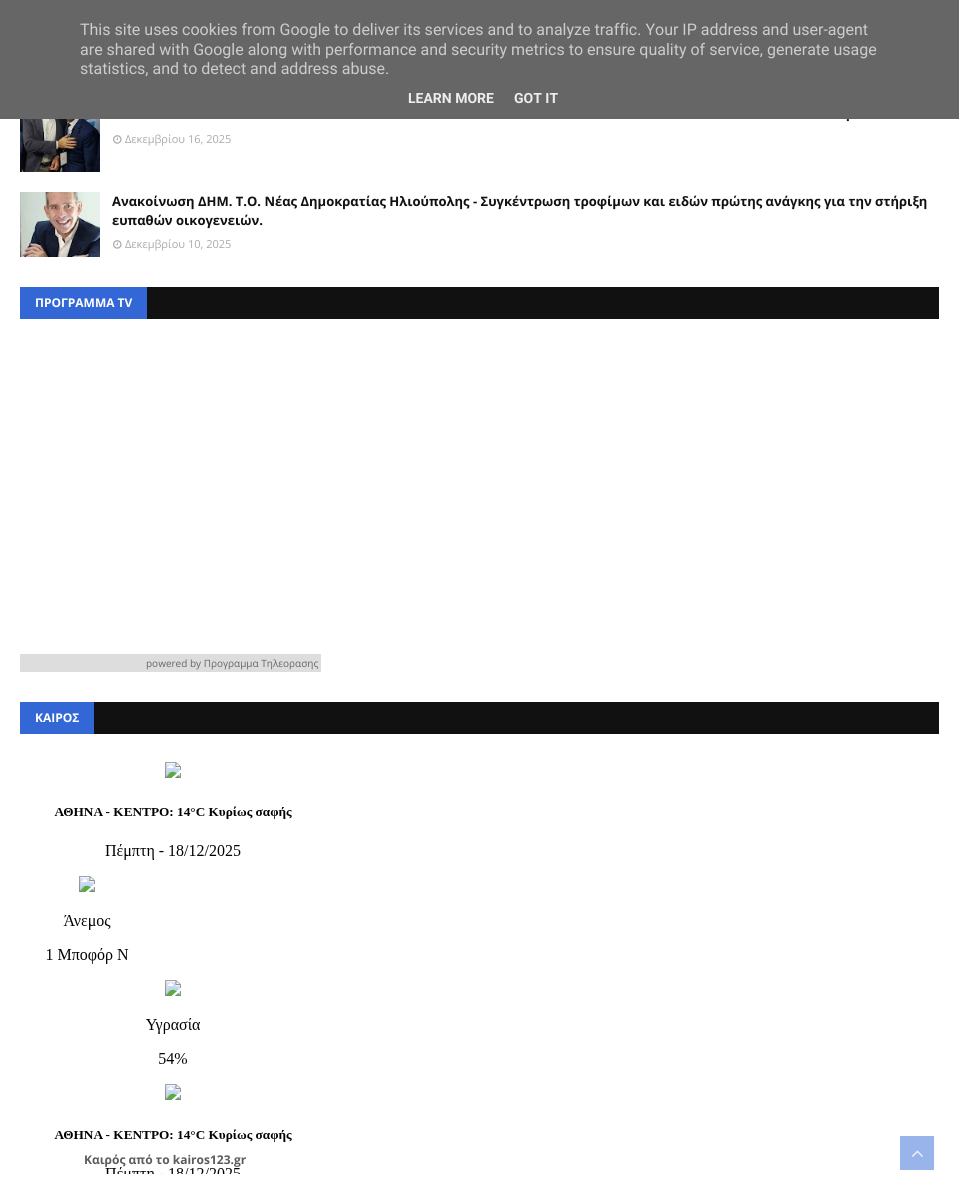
#include <cairo.h>
#include <math.h>
#include <stddef.h>


static void rgb(cairo_t *cr, int r, int g, int b)
{
	cairo_set_source_rgb(cr, r / 255.0, g / 255.0, b / 255.0);
}

static void face(cairo_t *cr, const char *family, double size, int italic, int bold)
{
	cairo_select_font_face(cr, family, italic ? CAIRO_FONT_SLANT_ITALIC : CAIRO_FONT_SLANT_NORMAL,
		bold ? CAIRO_FONT_WEIGHT_BOLD : CAIRO_FONT_WEIGHT_NORMAL);
	cairo_set_font_size(cr, size);
}

static void label(cairo_t *cr, double x, double y, const char *s)
{
	cairo_move_to(cr, x, y);
	cairo_show_text(cr, s);
}

static void rect(cairo_t *cr, double x, double y, double w, double h)
{
	cairo_rectangle(cr, x, y, w, h);
	cairo_fill(cr);
}

static void image(cairo_t *cr, const char *path, double x, double y, double w, double h)
{
	cairo_surface_t *image = cairo_image_surface_create_from_png(path);
	cairo_save(cr);
	cairo_set_source_surface(cr, image, x, y);
	cairo_rectangle(cr, x, y, w, h);
	cairo_fill(cr);
	cairo_restore(cr);
	cairo_surface_destroy(image);
}

static void draw(cairo_t *cr) {
	rgb(cr, 255, 255, 255);
	cairo_paint(cr);
	rgb(cr, 102, 102, 102);
	rect(cr, 0, 0, 959, 119);
	face(cr, "Roboto", 16, 0, 0);
	rgb(cr, 204, 204, 204);
	label(cr, 80, 35, "This site uses cookies from Google to deliver its services and to analyze traffic. Your IP address and user-agent");
	label(cr, 80, 55, "are shared with Google along with performance and security metrics to ensure quality of service, generate usage");
	label(cr, 80, 74, "statistics, and to detect and address abuse.");
	face(cr, "Roboto", 14, 0, 1);
	rgb(cr, 238, 238, 238);
	label(cr, 408, 103, "LEARN MORE");
	label(cr, 514, 103, "GOT IT");
	image(cr, "image0.png", 20, 119, 80, 53);
	face(cr, "Open Sans", 13, 0, 1);
	rgb(cr, 17, 17, 17);
	label(cr, 846, 121, ".");
	image(cr, "image1.png", 113, 135, 9, 9);
	face(cr, "Open Sans", 11, 0, 0);
	rgb(cr, 170, 170, 170);
	label(cr, 125, 143, "Δεκεμβρίου 16, 2025");
	image(cr, "image2.png", 20, 192, 80, 65);
	face(cr, "Open Sans", 13, 0, 1);
	rgb(cr, 17, 17, 17);
	label(cr, 112, 206, "Ανακοίνωση ΔΗΜ. Τ.Ο. Νέας Δημοκρατίας Ηλιούπολης - Συγκέντρωση τροφίμων και ειδών πρώτης ανάγκης για την στήριξη");
	label(cr, 112, 225, "ευπαθών οικογενειών.");
	image(cr, "image1.png", 113, 240, 9, 9);
	face(cr, "Open Sans", 11, 0, 0);
	rgb(cr, 170, 170, 170);
	label(cr, 125, 248, "Δεκεμβρίου 10, 2025");
	rgb(cr, 17, 17, 17);
	rect(cr, 147, 287, 792, 32);
	rgb(cr, 51, 103, 214);
	rect(cr, 20, 287, 127, 32);
	face(cr, "Open Sans", 12, 0, 1);
	rgb(cr, 255, 255, 255);
	label(cr, 35, 307, "ΠΡΟΓΡΑΜΜΑ TV");
	rgb(cr, 221, 221, 221);
	rect(cr, 20, 654, 301, 18);
	face(cr, "Open Sans", 10, 0, 0);
	rgb(cr, 102, 102, 102);
	label(cr, 146, 667, "powered by Προγραμμα Τηλεορασης");
	rgb(cr, 17, 17, 17);
	rect(cr, 94, 702, 845, 32);
	rgb(cr, 51, 103, 214);
	rect(cr, 20, 702, 74, 32);
	face(cr, "Open Sans", 12, 0, 1);
	rgb(cr, 255, 255, 255);
	label(cr, 35, 722, "ΚΑΙΡΟΣ");
	image(cr, "image3.png", 46, 762, 246, 412);
	rgb(cr, 92, 92, 92);
	label(cr, 84, 1164, "Καιρός από το kairos123.gr");
	rgb(cr, 153, 179, 235);
	rect(cr, 900, 1136, 34, 34);
	image(cr, "image4.png", 912, 1150, 11, 7);
}

int main(void) {
	cairo_surface_t *surface = cairo_image_surface_create(CAIRO_FORMAT_RGB24, 959, 1195);
	cairo_t *cr = cairo_create(surface);
	cairo_font_options_t *options = cairo_font_options_create();
	cairo_font_options_set_hint_metrics(options, CAIRO_HINT_METRICS_OFF);
	cairo_font_options_set_hint_style(options, CAIRO_HINT_STYLE_NONE);
	cairo_set_font_options(cr, options);
	cairo_set_miter_limit(cr, 4);
	draw(cr);
	cairo_surface_write_to_png(surface, "render.png");
	cairo_font_options_destroy(options);
	cairo_destroy(cr);
	cairo_surface_destroy(surface);
	return 0;
}
